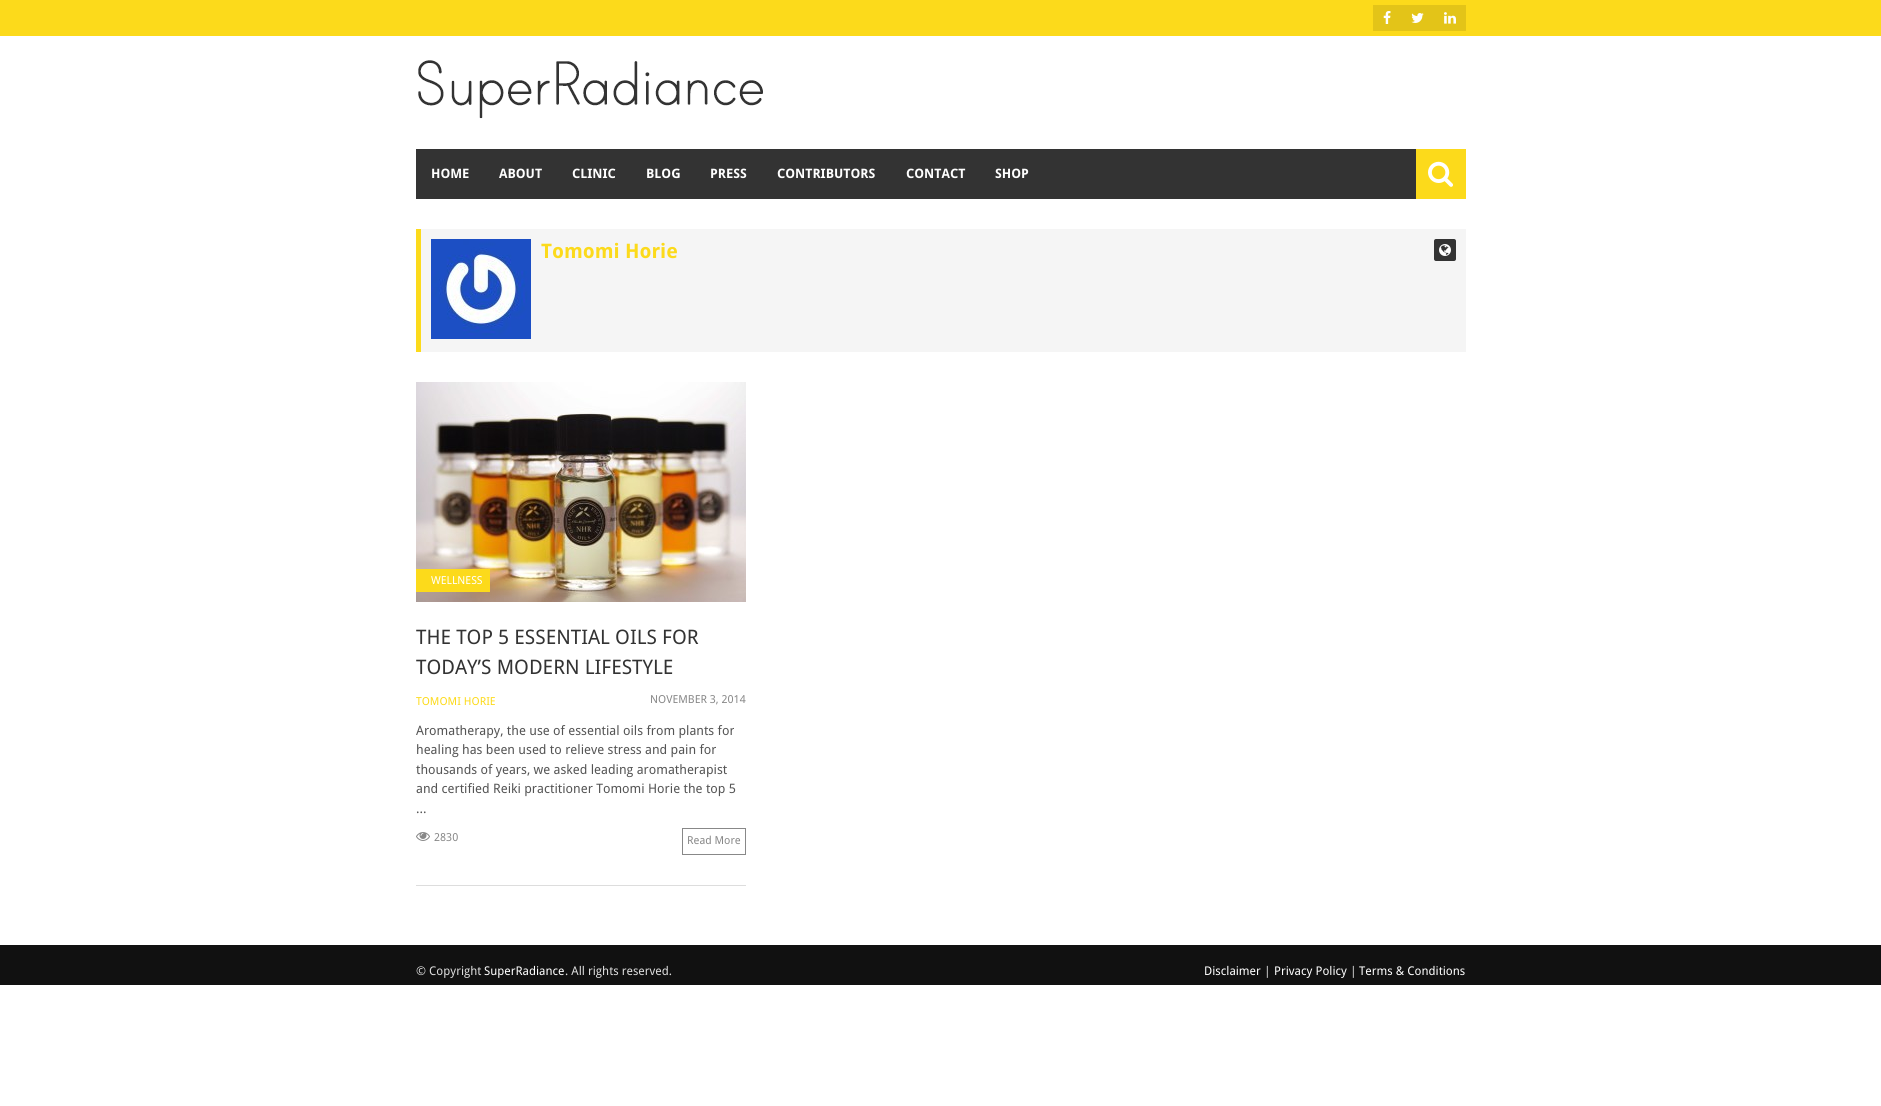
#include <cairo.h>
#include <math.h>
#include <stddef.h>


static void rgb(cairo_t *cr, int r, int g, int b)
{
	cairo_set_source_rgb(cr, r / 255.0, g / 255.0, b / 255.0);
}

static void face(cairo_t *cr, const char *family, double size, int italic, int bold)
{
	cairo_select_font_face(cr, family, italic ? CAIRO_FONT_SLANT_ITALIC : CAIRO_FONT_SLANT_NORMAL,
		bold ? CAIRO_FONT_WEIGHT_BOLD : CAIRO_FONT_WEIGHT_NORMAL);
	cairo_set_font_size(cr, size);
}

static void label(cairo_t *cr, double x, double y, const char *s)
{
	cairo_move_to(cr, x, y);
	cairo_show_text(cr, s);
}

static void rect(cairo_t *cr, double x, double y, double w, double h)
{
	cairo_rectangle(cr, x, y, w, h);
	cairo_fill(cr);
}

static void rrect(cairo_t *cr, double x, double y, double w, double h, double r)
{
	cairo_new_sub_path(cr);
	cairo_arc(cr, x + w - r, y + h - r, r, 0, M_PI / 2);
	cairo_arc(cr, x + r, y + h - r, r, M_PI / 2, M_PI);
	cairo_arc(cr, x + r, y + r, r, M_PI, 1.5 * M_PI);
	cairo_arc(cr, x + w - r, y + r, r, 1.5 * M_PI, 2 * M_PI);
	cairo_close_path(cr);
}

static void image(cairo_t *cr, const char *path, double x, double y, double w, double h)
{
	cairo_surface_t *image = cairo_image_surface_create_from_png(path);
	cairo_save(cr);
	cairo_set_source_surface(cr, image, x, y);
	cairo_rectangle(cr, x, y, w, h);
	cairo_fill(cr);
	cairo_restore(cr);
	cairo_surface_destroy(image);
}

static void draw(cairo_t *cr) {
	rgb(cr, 255, 255, 255);
	cairo_paint(cr);
	rgb(cr, 252, 218, 27);
	rect(cr, 0, 0, 1881, 36);
	rgb(cr, 227, 196, 24);
	rect(cr, 1373, 5, 93, 26);
	image(cr, "image0.png", 1383, 11, 8, 13);
	image(cr, "image1.png", 1411, 13, 13, 10);
	image(cr, "image2.png", 1444, 12, 12, 12);
	image(cr, "image3.png", 418, 60, 345, 59);
	rgb(cr, 51, 51, 51);
	rect(cr, 416, 149, 1000, 50);
	face(cr, "Droid Sans", 13, 0, 1);
	rgb(cr, 255, 255, 255);
	label(cr, 431, 178, "HOME");
	label(cr, 499, 178, "ABOUT");
	label(cr, 572, 178, "CLINIC");
	label(cr, 646, 178, "BLOG");
	label(cr, 710, 178, "PRESS");
	label(cr, 777, 178, "CONTRIBUTORS");
	label(cr, 906, 178, "CONTACT");
	label(cr, 995, 178, "SHOP");
	rgb(cr, 252, 218, 27);
	rect(cr, 1416, 149, 50, 50);
	image(cr, "image4.png", 1428, 161, 25, 26);
	rgb(cr, 245, 245, 245);
	rect(cr, 421, 229, 1045, 123);
	rgb(cr, 252, 218, 27);
	rect(cr, 416, 229, 5, 123);
	image(cr, "image5.png", 431, 239, 100, 100);
	face(cr, "Droid Sans", 20, 0, 1);
	label(cr, 541, 258, "Tomomi Horie");
	rgb(cr, 51, 51, 51);
	rrect(cr, 1434, 239, 22, 22, 2);
	cairo_fill(cr);
	image(cr, "image6.png", 1439, 244, 12, 12);
	rgb(cr, 221, 221, 221);
	rect(cr, 416, 885, 330, 1);
	image(cr, "image7.png", 416, 382, 330, 220);
	rgb(cr, 252, 218, 27);
	rect(cr, 416, 569, 74, 23);
	face(cr, "Droid Sans", 11, 0, 0);
	rgb(cr, 255, 255, 255);
	label(cr, 431, 584, "WELLNESS");
	face(cr, "Droid Sans", 20, 0, 0);
	rgb(cr, 51, 51, 51);
	label(cr, 416, 644, "THE TOP 5 ESSENTIAL OILS FOR");
	label(cr, 416, 674, "TODAY’S MODERN LIFESTYLE");
	face(cr, "Droid Sans", 11, 0, 0);
	rgb(cr, 252, 218, 27);
	label(cr, 416, 705, "TOMOMI HORIE");
	rgb(cr, 136, 136, 136);
	label(cr, 650, 703, "NOVEMBER 3, 2014");
	face(cr, "Droid Sans", 13, 0, 0);
	rgb(cr, 85, 85, 85);
	label(cr, 416, 735, "Aromatherapy, the use of essential oils from plants for");
	label(cr, 416, 754, "healing has been used to relieve stress and pain for");
	label(cr, 416, 774, "thousands of years, we asked leading aromatherapist");
	label(cr, 416, 793, "and certified Reiki practitioner Tomomi Horie the top 5");
	label(cr, 416, 813, "...");
	image(cr, "image8.png", 416, 832, 14, 9);
	face(cr, "Droid Sans", 11, 0, 0);
	rgb(cr, 136, 136, 136);
	label(cr, 434, 841, "2830");
	cairo_rectangle(cr, 682.5, 828.5, 63, 26);
	cairo_set_line_width(cr, 1);
	cairo_stroke(cr);
	label(cr, 687, 844, "Read More");
	rgb(cr, 17, 17, 17);
	rect(cr, 0, 945, 1881, 40);
	face(cr, "Droid Sans", 12, 0, 0);
	rgb(cr, 221, 221, 221);
	label(cr, 416, 975, "© Copyright");
	rgb(cr, 255, 255, 255);
	label(cr, 484, 975, "SuperRadiance");
	rgb(cr, 221, 221, 221);
	label(cr, 565, 975, ". All rights reserved.");
	rgb(cr, 255, 255, 255);
	label(cr, 1204, 975, "Disclaimer");
	rgb(cr, 221, 221, 221);
	label(cr, 1264, 975, "|");
	rgb(cr, 255, 255, 255);
	label(cr, 1274, 975, "Privacy Policy");
	rgb(cr, 221, 221, 221);
	label(cr, 1350, 975, "|");
	rgb(cr, 255, 255, 255);
	label(cr, 1359, 975, "Terms & Conditions");
}

int main(void) {
	cairo_surface_t *surface = cairo_image_surface_create(CAIRO_FORMAT_RGB24, 1881, 1106);
	cairo_t *cr = cairo_create(surface);
	cairo_font_options_t *options = cairo_font_options_create();
	cairo_font_options_set_hint_metrics(options, CAIRO_HINT_METRICS_OFF);
	cairo_font_options_set_hint_style(options, CAIRO_HINT_STYLE_NONE);
	cairo_set_font_options(cr, options);
	cairo_set_miter_limit(cr, 4);
	draw(cr);
	cairo_surface_write_to_png(surface, "render.png");
	cairo_font_options_destroy(options);
	cairo_destroy(cr);
	cairo_surface_destroy(surface);
	return 0;
}
